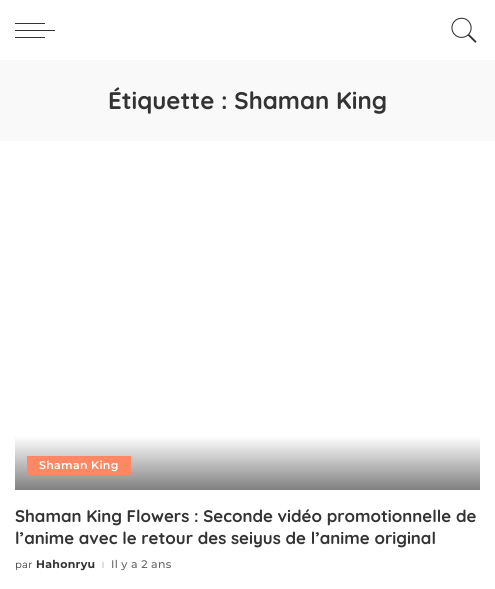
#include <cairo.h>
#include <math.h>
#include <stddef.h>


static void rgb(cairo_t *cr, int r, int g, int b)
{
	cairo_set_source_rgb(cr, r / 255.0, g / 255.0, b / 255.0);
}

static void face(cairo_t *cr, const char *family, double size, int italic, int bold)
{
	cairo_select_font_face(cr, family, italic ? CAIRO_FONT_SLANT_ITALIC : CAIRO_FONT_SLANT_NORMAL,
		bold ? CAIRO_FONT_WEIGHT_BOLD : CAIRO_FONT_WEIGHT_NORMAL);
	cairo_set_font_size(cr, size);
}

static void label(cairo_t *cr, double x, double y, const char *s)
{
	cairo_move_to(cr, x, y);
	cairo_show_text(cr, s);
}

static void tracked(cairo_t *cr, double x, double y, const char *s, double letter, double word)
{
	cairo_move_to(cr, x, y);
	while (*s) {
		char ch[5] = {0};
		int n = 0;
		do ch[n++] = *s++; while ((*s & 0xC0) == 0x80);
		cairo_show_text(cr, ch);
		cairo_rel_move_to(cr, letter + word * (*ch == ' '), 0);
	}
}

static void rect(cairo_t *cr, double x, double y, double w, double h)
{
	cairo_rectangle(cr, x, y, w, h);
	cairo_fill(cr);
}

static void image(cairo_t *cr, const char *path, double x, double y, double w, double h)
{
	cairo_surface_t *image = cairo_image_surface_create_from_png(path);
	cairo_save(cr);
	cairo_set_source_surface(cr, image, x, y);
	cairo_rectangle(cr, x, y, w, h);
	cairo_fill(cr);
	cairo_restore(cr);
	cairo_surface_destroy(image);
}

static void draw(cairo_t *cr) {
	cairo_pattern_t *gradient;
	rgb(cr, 255, 255, 255);
	cairo_paint(cr);
	rgb(cr, 51, 51, 51);
	rect(cr, 15, 30, 40, 1);
	rect(cr, 15, 23, 30, 1);
	rect(cr, 15, 37, 30, 1);
	image(cr, "image0.png", 451, 17, 26, 26);
	rgb(cr, 249, 249, 249);
	rect(cr, 0, 60, 495, 81);
	face(cr, "Quicksand", 24, 0, 1);
	rgb(cr, 51, 51, 51);
	label(cr, 108, 109, "Étiquette : Shaman King");
	gradient = cairo_pattern_create_linear(248, 436, 248, 490);
	cairo_pattern_add_color_stop_rgba(gradient, 0, 1, 1, 1, 1);
	cairo_pattern_add_color_stop_rgba(gradient, 1, 0.502, 0.502, 0.502, 1);
	cairo_set_source(cr, gradient);
	cairo_pattern_destroy(gradient);
	rect(cr, 15, 437, 465, 53);
	rgb(cr, 255, 135, 99);
	rect(cr, 27, 456, 104, 19);
	face(cr, "Montserrat SemiBold", 11, 0, 0);
	rgb(cr, 255, 255, 255);
	tracked(cr, 39, 469, "Shaman King", 0.3, 0);
	face(cr, "Quicksand", 16.8, 0, 1);
	rgb(cr, 51, 51, 51);
	label(cr, 15, 522, "Shaman King Flowers : Seconde vidéo promotionnelle de");
	label(cr, 15, 544, "l’anime avec le retour des seiyus de l’anime original");
	face(cr, "Montserrat", 10, 0, 0);
	tracked(cr, 15, 568, "par", 0.3, 0);
	face(cr, "Montserrat", 11, 0, 1);
	tracked(cr, 36, 568, "Hahonryu", 0.3, 0);
	rgb(cr, 224, 224, 224);
	rect(cr, 102, 562, 2, 6);
	face(cr, "Montserrat Medium", 11, 0, 0);
	rgb(cr, 102, 102, 102);
	tracked(cr, 111, 568, "Il y a 2 ans", 0.3, 0);
}

int main(void) {
	cairo_surface_t *surface = cairo_image_surface_create(CAIRO_FORMAT_RGB24, 495, 589);
	cairo_t *cr = cairo_create(surface);
	cairo_font_options_t *options = cairo_font_options_create();
	cairo_font_options_set_hint_metrics(options, CAIRO_HINT_METRICS_OFF);
	cairo_font_options_set_hint_style(options, CAIRO_HINT_STYLE_NONE);
	cairo_set_font_options(cr, options);
	cairo_set_miter_limit(cr, 4);
	draw(cr);
	cairo_surface_write_to_png(surface, "render.png");
	cairo_font_options_destroy(options);
	cairo_destroy(cr);
	cairo_surface_destroy(surface);
	return 0;
}
